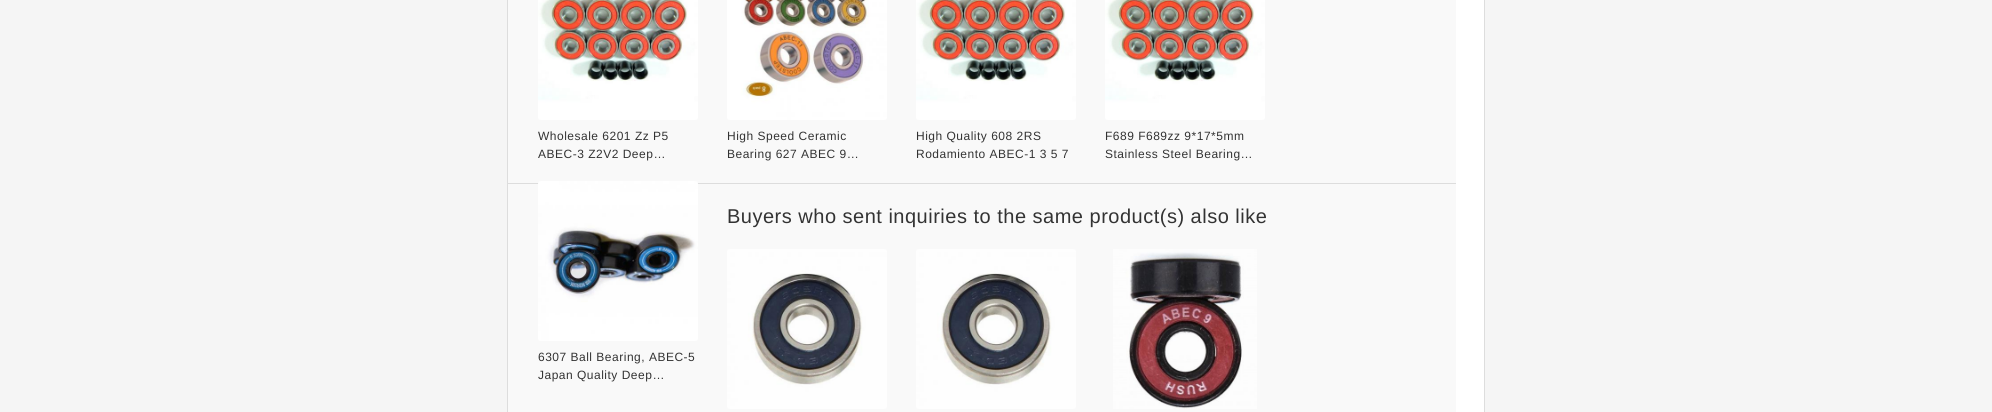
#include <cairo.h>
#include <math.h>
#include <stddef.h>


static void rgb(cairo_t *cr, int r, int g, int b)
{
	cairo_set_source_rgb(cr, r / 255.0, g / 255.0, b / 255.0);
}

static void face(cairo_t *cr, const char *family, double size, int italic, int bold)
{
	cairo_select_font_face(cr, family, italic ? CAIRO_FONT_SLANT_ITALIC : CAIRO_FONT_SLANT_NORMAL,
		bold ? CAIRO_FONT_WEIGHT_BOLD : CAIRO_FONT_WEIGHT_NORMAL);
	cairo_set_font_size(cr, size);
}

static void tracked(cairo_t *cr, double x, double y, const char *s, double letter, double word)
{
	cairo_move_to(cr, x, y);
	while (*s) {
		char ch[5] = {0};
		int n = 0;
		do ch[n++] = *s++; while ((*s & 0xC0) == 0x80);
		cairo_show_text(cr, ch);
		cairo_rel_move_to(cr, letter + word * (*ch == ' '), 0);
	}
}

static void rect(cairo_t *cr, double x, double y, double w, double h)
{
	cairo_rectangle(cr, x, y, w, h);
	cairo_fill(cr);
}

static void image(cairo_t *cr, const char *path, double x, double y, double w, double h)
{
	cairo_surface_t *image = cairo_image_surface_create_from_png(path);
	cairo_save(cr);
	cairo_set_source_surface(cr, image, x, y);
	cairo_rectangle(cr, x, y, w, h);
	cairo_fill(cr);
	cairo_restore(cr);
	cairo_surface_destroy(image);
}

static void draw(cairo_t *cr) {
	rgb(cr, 245, 245, 245);
	cairo_paint(cr);
	rgb(cr, 255, 255, 255);
	rect(cr, 1456, 0, 28, 412);
	cairo_rectangle(cr, 507.5, -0.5, 977, 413);
	rgb(cr, 221, 221, 221);
	cairo_set_line_width(cr, 1);
	cairo_stroke(cr);
	rgb(cr, 249, 249, 249);
	rect(cr, 508, 0, 948, 183);
	rgb(cr, 221, 221, 221);
	rect(cr, 508, 183, 948, 1);
	image(cr, "image0.png", 538, 0, 160, 120);
	face(cr, "Liberation Sans", 12, 0, 0);
	rgb(cr, 51, 51, 51);
	tracked(cr, 538, 140, "Wholesale 6201 Zz P5", 0.5, 0);
	tracked(cr, 538, 158, "ABEC-3 Z2V2 Deep…", 0.5, 0);
	image(cr, "image1.png", 727, 0, 160, 120);
	tracked(cr, 727, 140, "High Speed Ceramic", 0.5, 0);
	tracked(cr, 727, 158, "Bearing 627 ABEC 9…", 0.5, 0);
	image(cr, "image0.png", 916, 0, 160, 120);
	tracked(cr, 916, 140, "High Quality 608 2RS", 0.5, 0);
	tracked(cr, 916, 158, "Rodamiento ABEC-1 3 5 7", 0.5, 0);
	image(cr, "image0.png", 1105, 0, 160, 120);
	tracked(cr, 1105, 140, "F689 F689zz 9*17*5mm", 0.5, 0);
	tracked(cr, 1105, 158, "Stainless Steel Bearing…", 0.5, 0);
	rgb(cr, 249, 249, 249);
	rect(cr, 508, 184, 948, 228);
	image(cr, "image2.png", 538, 181, 160, 160);
	rgb(cr, 51, 51, 51);
	tracked(cr, 538, 361, "6307 Ball Bearing, ABEC-5", 0.5, 0);
	tracked(cr, 538, 379, "Japan Quality Deep…", 0.5, 0);
	face(cr, "Liberation Sans", 20, 0, 0);
	tracked(cr, 727, 223, "Buyers who sent inquiries to the same product(s) also like", 0.5, 0);
	image(cr, "image3.png", 727, 249, 160, 160);
	image(cr, "image3.png", 916, 249, 160, 160);
	image(cr, "image4.png", 1113, 249, 144, 160);
}

int main(void) {
	cairo_surface_t *surface = cairo_image_surface_create(CAIRO_FORMAT_RGB24, 1992, 412);
	cairo_t *cr = cairo_create(surface);
	cairo_font_options_t *options = cairo_font_options_create();
	cairo_font_options_set_hint_metrics(options, CAIRO_HINT_METRICS_OFF);
	cairo_font_options_set_hint_style(options, CAIRO_HINT_STYLE_NONE);
	cairo_set_font_options(cr, options);
	cairo_set_miter_limit(cr, 4);
	draw(cr);
	cairo_surface_write_to_png(surface, "render.png");
	cairo_font_options_destroy(options);
	cairo_destroy(cr);
	cairo_surface_destroy(surface);
	return 0;
}
